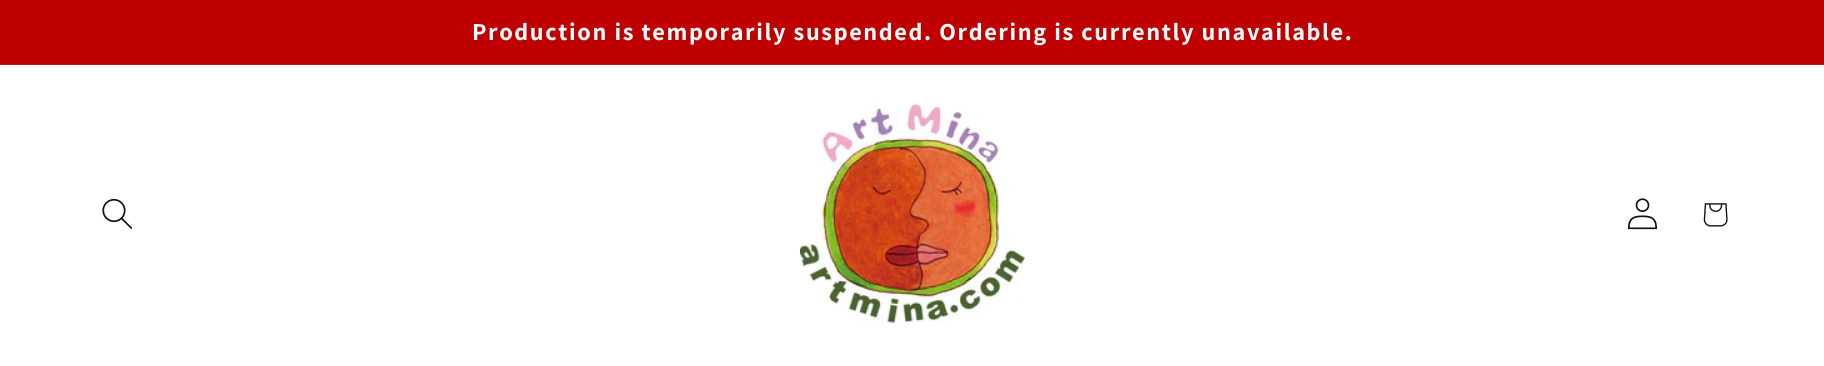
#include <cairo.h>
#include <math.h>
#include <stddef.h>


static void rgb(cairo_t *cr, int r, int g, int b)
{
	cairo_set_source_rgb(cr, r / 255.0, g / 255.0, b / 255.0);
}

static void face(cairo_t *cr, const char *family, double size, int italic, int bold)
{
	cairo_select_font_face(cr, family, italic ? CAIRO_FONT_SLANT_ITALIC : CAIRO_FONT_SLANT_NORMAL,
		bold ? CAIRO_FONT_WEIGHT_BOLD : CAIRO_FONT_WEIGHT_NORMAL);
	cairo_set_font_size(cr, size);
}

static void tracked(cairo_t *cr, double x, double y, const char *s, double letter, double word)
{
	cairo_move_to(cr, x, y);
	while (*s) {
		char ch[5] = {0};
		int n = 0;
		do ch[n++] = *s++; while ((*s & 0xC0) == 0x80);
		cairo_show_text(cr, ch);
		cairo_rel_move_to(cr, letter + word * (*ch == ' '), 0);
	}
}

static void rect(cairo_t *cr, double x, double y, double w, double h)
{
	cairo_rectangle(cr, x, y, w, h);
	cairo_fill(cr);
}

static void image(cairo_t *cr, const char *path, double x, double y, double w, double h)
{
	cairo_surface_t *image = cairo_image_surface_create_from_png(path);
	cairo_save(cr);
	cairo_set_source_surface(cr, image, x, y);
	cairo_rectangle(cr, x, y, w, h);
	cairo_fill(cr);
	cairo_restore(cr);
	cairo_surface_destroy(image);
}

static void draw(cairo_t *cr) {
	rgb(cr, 255, 255, 255);
	cairo_paint(cr);
	rgb(cr, 191, 0, 0);
	rect(cr, 0, 0, 1824, 64);
	rgb(cr, 196, 20, 20);
	rect(cr, 0, 64, 1824, 1);
	face(cr, "Assistant", 24.4, 0, 1);
	rgb(cr, 255, 255, 255);
	tracked(cr, 472, 40, "Production is temporarily suspended. Ordering is currently unavailable.", 1.62, 0);
	image(cr, "image0.png", 102, 198, 31, 31);
	image(cr, "image1.png", 800, 101, 225, 224);
	image(cr, "image2.png", 1627, 198, 31, 32);
	image(cr, "image3.png", 1703, 203, 25, 24);
}

int main(void) {
	cairo_surface_t *surface = cairo_image_surface_create(CAIRO_FORMAT_RGB24, 1824, 366);
	cairo_t *cr = cairo_create(surface);
	cairo_font_options_t *options = cairo_font_options_create();
	cairo_font_options_set_hint_metrics(options, CAIRO_HINT_METRICS_OFF);
	cairo_font_options_set_hint_style(options, CAIRO_HINT_STYLE_NONE);
	cairo_set_font_options(cr, options);
	cairo_set_miter_limit(cr, 4);
	draw(cr);
	cairo_surface_write_to_png(surface, "render.png");
	cairo_font_options_destroy(options);
	cairo_destroy(cr);
	cairo_surface_destroy(surface);
	return 0;
}
